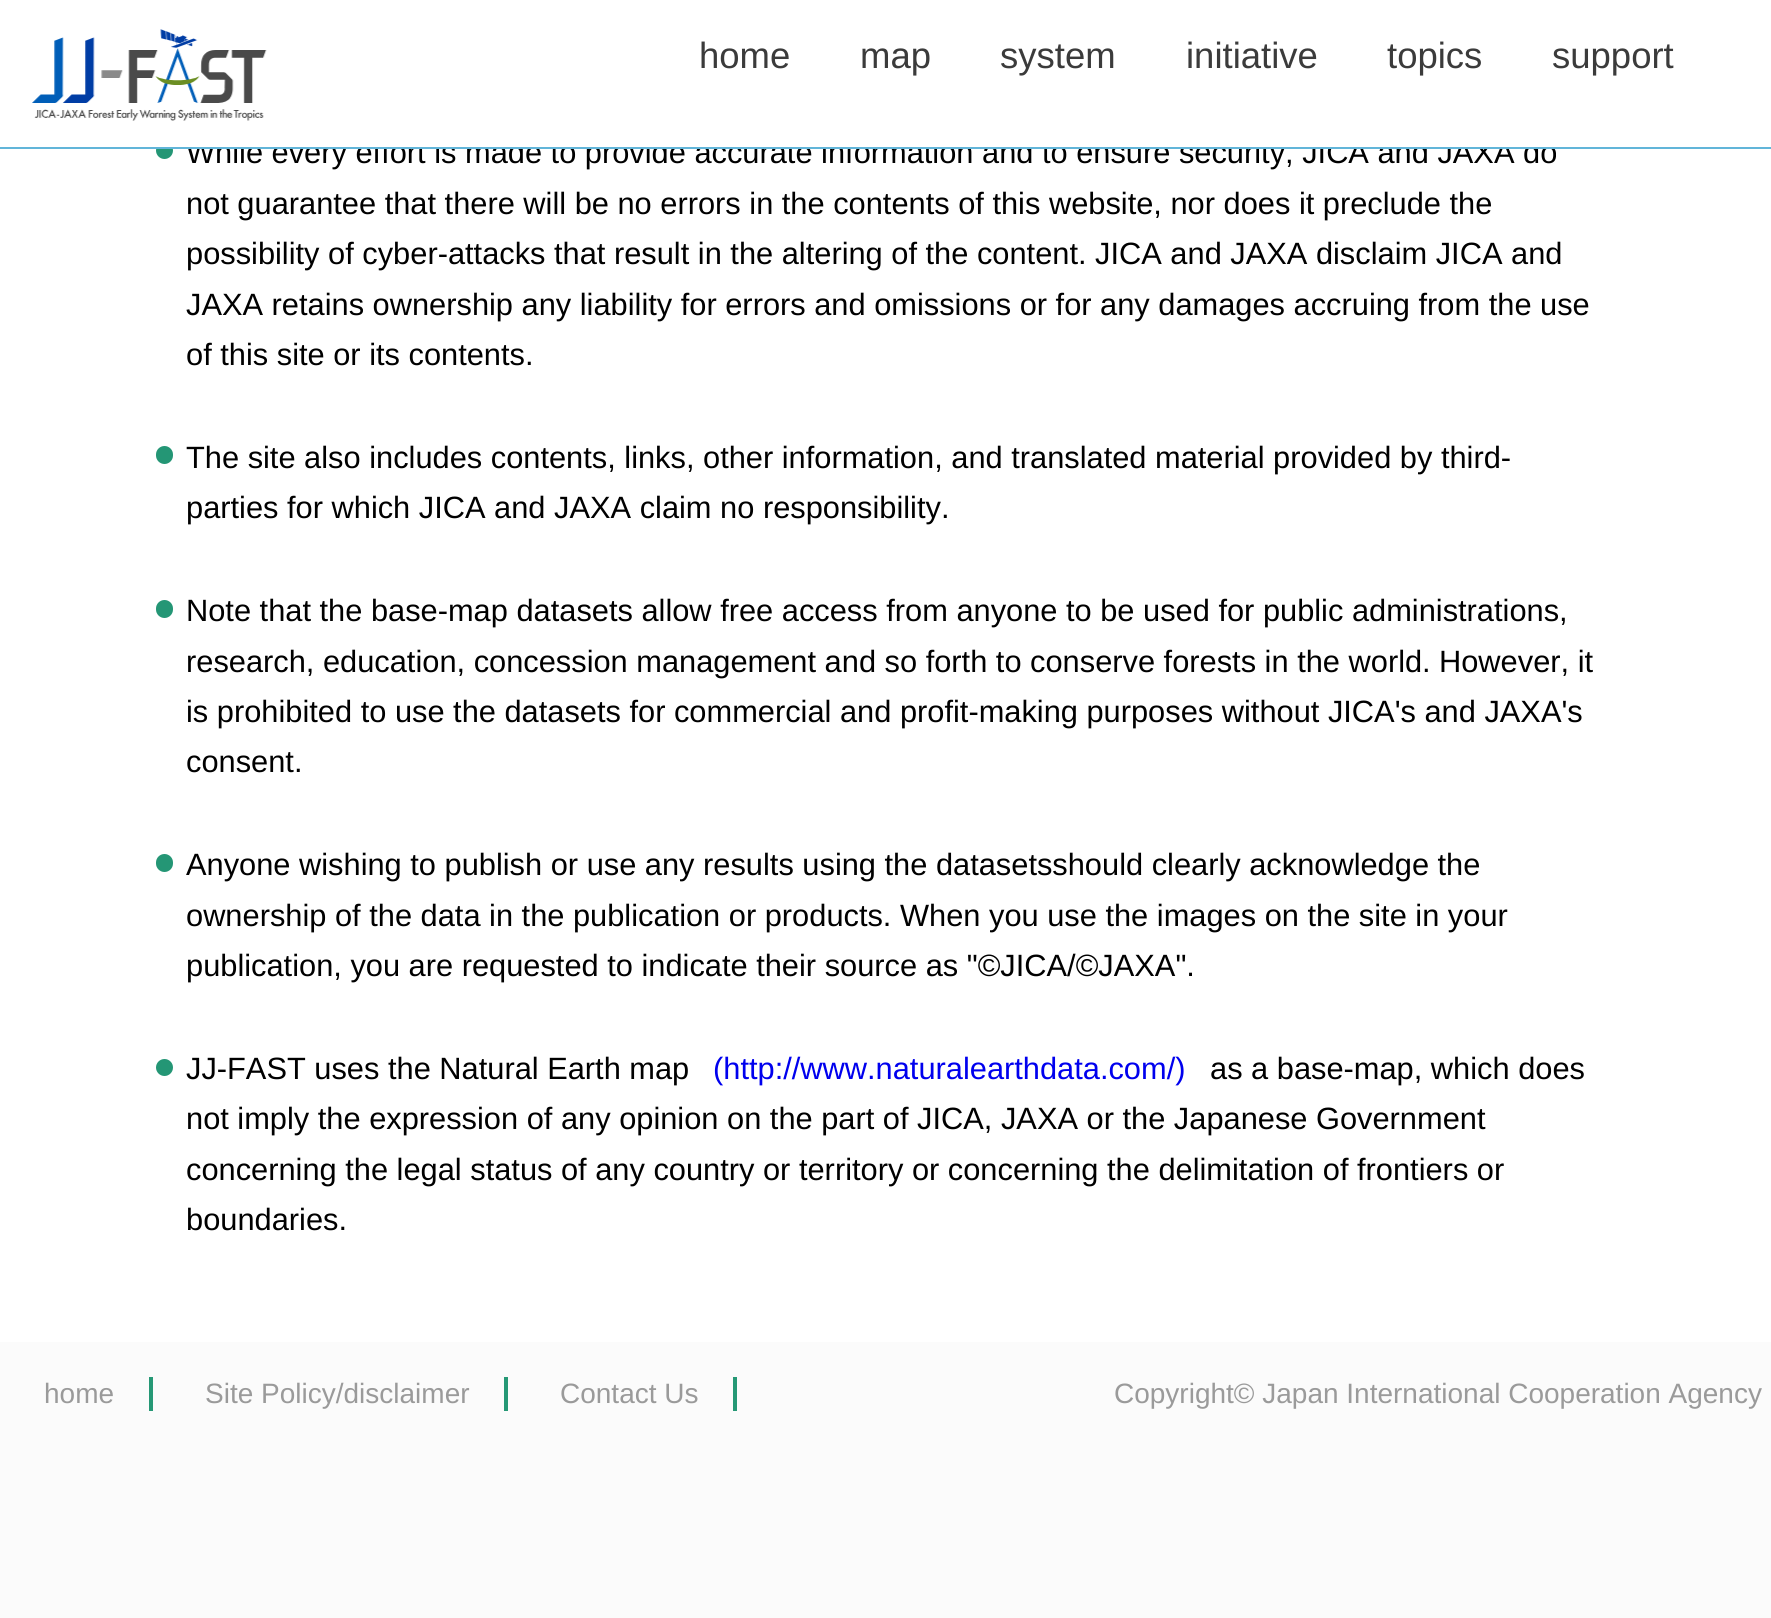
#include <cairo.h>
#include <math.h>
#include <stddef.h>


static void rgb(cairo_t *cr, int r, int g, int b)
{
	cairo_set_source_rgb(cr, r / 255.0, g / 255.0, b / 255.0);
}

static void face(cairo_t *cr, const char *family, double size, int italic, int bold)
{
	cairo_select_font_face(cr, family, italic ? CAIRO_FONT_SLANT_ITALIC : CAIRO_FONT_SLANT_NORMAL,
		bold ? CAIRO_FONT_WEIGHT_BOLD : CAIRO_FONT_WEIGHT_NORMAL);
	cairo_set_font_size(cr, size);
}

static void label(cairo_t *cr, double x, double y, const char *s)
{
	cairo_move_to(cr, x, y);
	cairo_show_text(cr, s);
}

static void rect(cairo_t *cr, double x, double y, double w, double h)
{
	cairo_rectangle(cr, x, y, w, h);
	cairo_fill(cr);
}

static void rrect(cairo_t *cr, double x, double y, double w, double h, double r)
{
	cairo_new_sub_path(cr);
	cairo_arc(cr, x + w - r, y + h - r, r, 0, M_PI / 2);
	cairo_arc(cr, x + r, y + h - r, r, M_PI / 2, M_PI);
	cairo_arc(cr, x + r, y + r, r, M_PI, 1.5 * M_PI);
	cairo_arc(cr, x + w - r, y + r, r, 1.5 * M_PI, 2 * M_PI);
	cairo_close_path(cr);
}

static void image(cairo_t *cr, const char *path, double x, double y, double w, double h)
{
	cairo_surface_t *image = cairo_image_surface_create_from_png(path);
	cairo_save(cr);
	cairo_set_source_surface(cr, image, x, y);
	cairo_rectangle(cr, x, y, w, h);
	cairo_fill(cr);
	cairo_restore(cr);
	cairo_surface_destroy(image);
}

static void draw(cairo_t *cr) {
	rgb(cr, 255, 255, 255);
	cairo_paint(cr);
	rgb(cr, 36, 150, 117);
	cairo_arc(cr, 164.5, 150.5, 8.5, 0, 2 * M_PI);
	cairo_fill(cr);
	face(cr, "Liberation Sans", 30.8, 0, 0);
	rgb(cr, 0, 0, 0);
	label(cr, 186, 163, "While every effort is made to provide accurate information and to ensure security, JICA and JAXA do");
	rgb(cr, 97, 181, 217);
	rect(cr, 0, 147, 1771, 2);
	image(cr, "image0.png", 32, 29, 235, 92);
	face(cr, "Liberation Sans", 36.5, 0, 0);
	rgb(cr, 59, 59, 59);
	label(cr, 699, 68, "home");
	label(cr, 860, 68, "map");
	label(cr, 1000, 68, "system");
	label(cr, 1186, 68, "initiative");
	label(cr, 1387, 68, "topics");
	label(cr, 1552, 68, "support");
	rgb(cr, 255, 255, 255);
	rect(cr, 156, 140, 1396, 7);
	face(cr, "Liberation Sans", 30.8, 0, 0);
	rgb(cr, 0, 0, 0);
	label(cr, 186, 214, "not guarantee that there will be no errors in the contents of this website, nor does it preclude the");
	label(cr, 186, 264, "possibility of cyber-attacks that result in the altering of the content. JICA and JAXA disclaim JICA and");
	label(cr, 186, 315, "JAXA retains ownership any liability for errors and omissions or for any damages accruing from the use");
	label(cr, 186, 365, "of this site or its contents.");
	rgb(cr, 36, 150, 117);
	rrect(cr, 156, 446, 17, 18, 8.5);
	cairo_fill(cr);
	rgb(cr, 0, 0, 0);
	label(cr, 186, 468, "The site also includes contents, links, other information, and translated material provided by third-");
	label(cr, 186, 518, "parties for which JICA and JAXA claim no responsibility.");
	rgb(cr, 36, 150, 117);
	rrect(cr, 156, 600, 17, 18, 8.5);
	cairo_fill(cr);
	rgb(cr, 0, 0, 0);
	label(cr, 186, 621, "Note that the base-map datasets allow free access from anyone to be used for public administrations,");
	label(cr, 186, 672, "research, education, concession management and so forth to conserve forests in the world.");
	label(cr, 1439, 672, "However, it");
	label(cr, 186, 722, "is prohibited to use the datasets for commercial and profit-making purposes without JICA's and JAXA's");
	label(cr, 186, 772, "consent.");
	rgb(cr, 36, 150, 117);
	rrect(cr, 156, 854, 17, 18, 8.5);
	cairo_fill(cr);
	rgb(cr, 0, 0, 0);
	label(cr, 186, 875, "Anyone wishing to publish or use any results using the datasetsshould clearly acknowledge the");
	label(cr, 186, 926, "ownership of the data in the publication or products. When you use the images on the site in your");
	label(cr, 186, 976, "publication, you are requested to indicate their source as \"©JICA/©JAXA\".");
	rgb(cr, 36, 150, 117);
	cairo_new_path(cr);
	cairo_arc(cr, 164.5, 1067.5, 8.5, 0, 2 * M_PI);
	cairo_fill(cr);
	rgb(cr, 0, 0, 0);
	label(cr, 186, 1079, "JJ-FAST uses the Natural Earth map");
	rgb(cr, 0, 0, 238);
	label(cr, 713, 1079, "(http://www.naturalearthdata.com/)");
	rgb(cr, 0, 0, 0);
	label(cr, 1210, 1079, "as a base-map, which does");
	label(cr, 186, 1129, "not imply the expression of any opinion on the part of JICA, JAXA or the Japanese Government");
	label(cr, 186, 1180, "concerning the legal status of any country or territory or concerning the delimitation of frontiers or");
	label(cr, 186, 1230, "boundaries.");
	rgb(cr, 251, 251, 251);
	rect(cr, 0, 1342, 1771, 276);
	rgb(cr, 37, 152, 117);
	rect(cr, 149, 1377, 4, 34);
	face(cr, "Liberation Sans", 28, 0, 0);
	rgb(cr, 154, 154, 154);
	label(cr, 44, 1403, "home");
	rgb(cr, 37, 152, 117);
	rect(cr, 504, 1377, 4, 34);
	rgb(cr, 154, 154, 154);
	label(cr, 205, 1403, "Site Policy/disclaimer");
	rgb(cr, 37, 152, 117);
	rect(cr, 733, 1377, 4, 34);
	rgb(cr, 154, 154, 154);
	label(cr, 560, 1403, "Contact Us");
	label(cr, 1114, 1403, "Copyright© Japan International Cooperation Agency");
}

int main(void) {
	cairo_surface_t *surface = cairo_image_surface_create(CAIRO_FORMAT_RGB24, 1771, 1618);
	cairo_t *cr = cairo_create(surface);
	cairo_font_options_t *options = cairo_font_options_create();
	cairo_font_options_set_hint_metrics(options, CAIRO_HINT_METRICS_OFF);
	cairo_font_options_set_hint_style(options, CAIRO_HINT_STYLE_NONE);
	cairo_set_font_options(cr, options);
	cairo_set_miter_limit(cr, 4);
	draw(cr);
	cairo_surface_write_to_png(surface, "render.png");
	cairo_font_options_destroy(options);
	cairo_destroy(cr);
	cairo_surface_destroy(surface);
	return 0;
}
